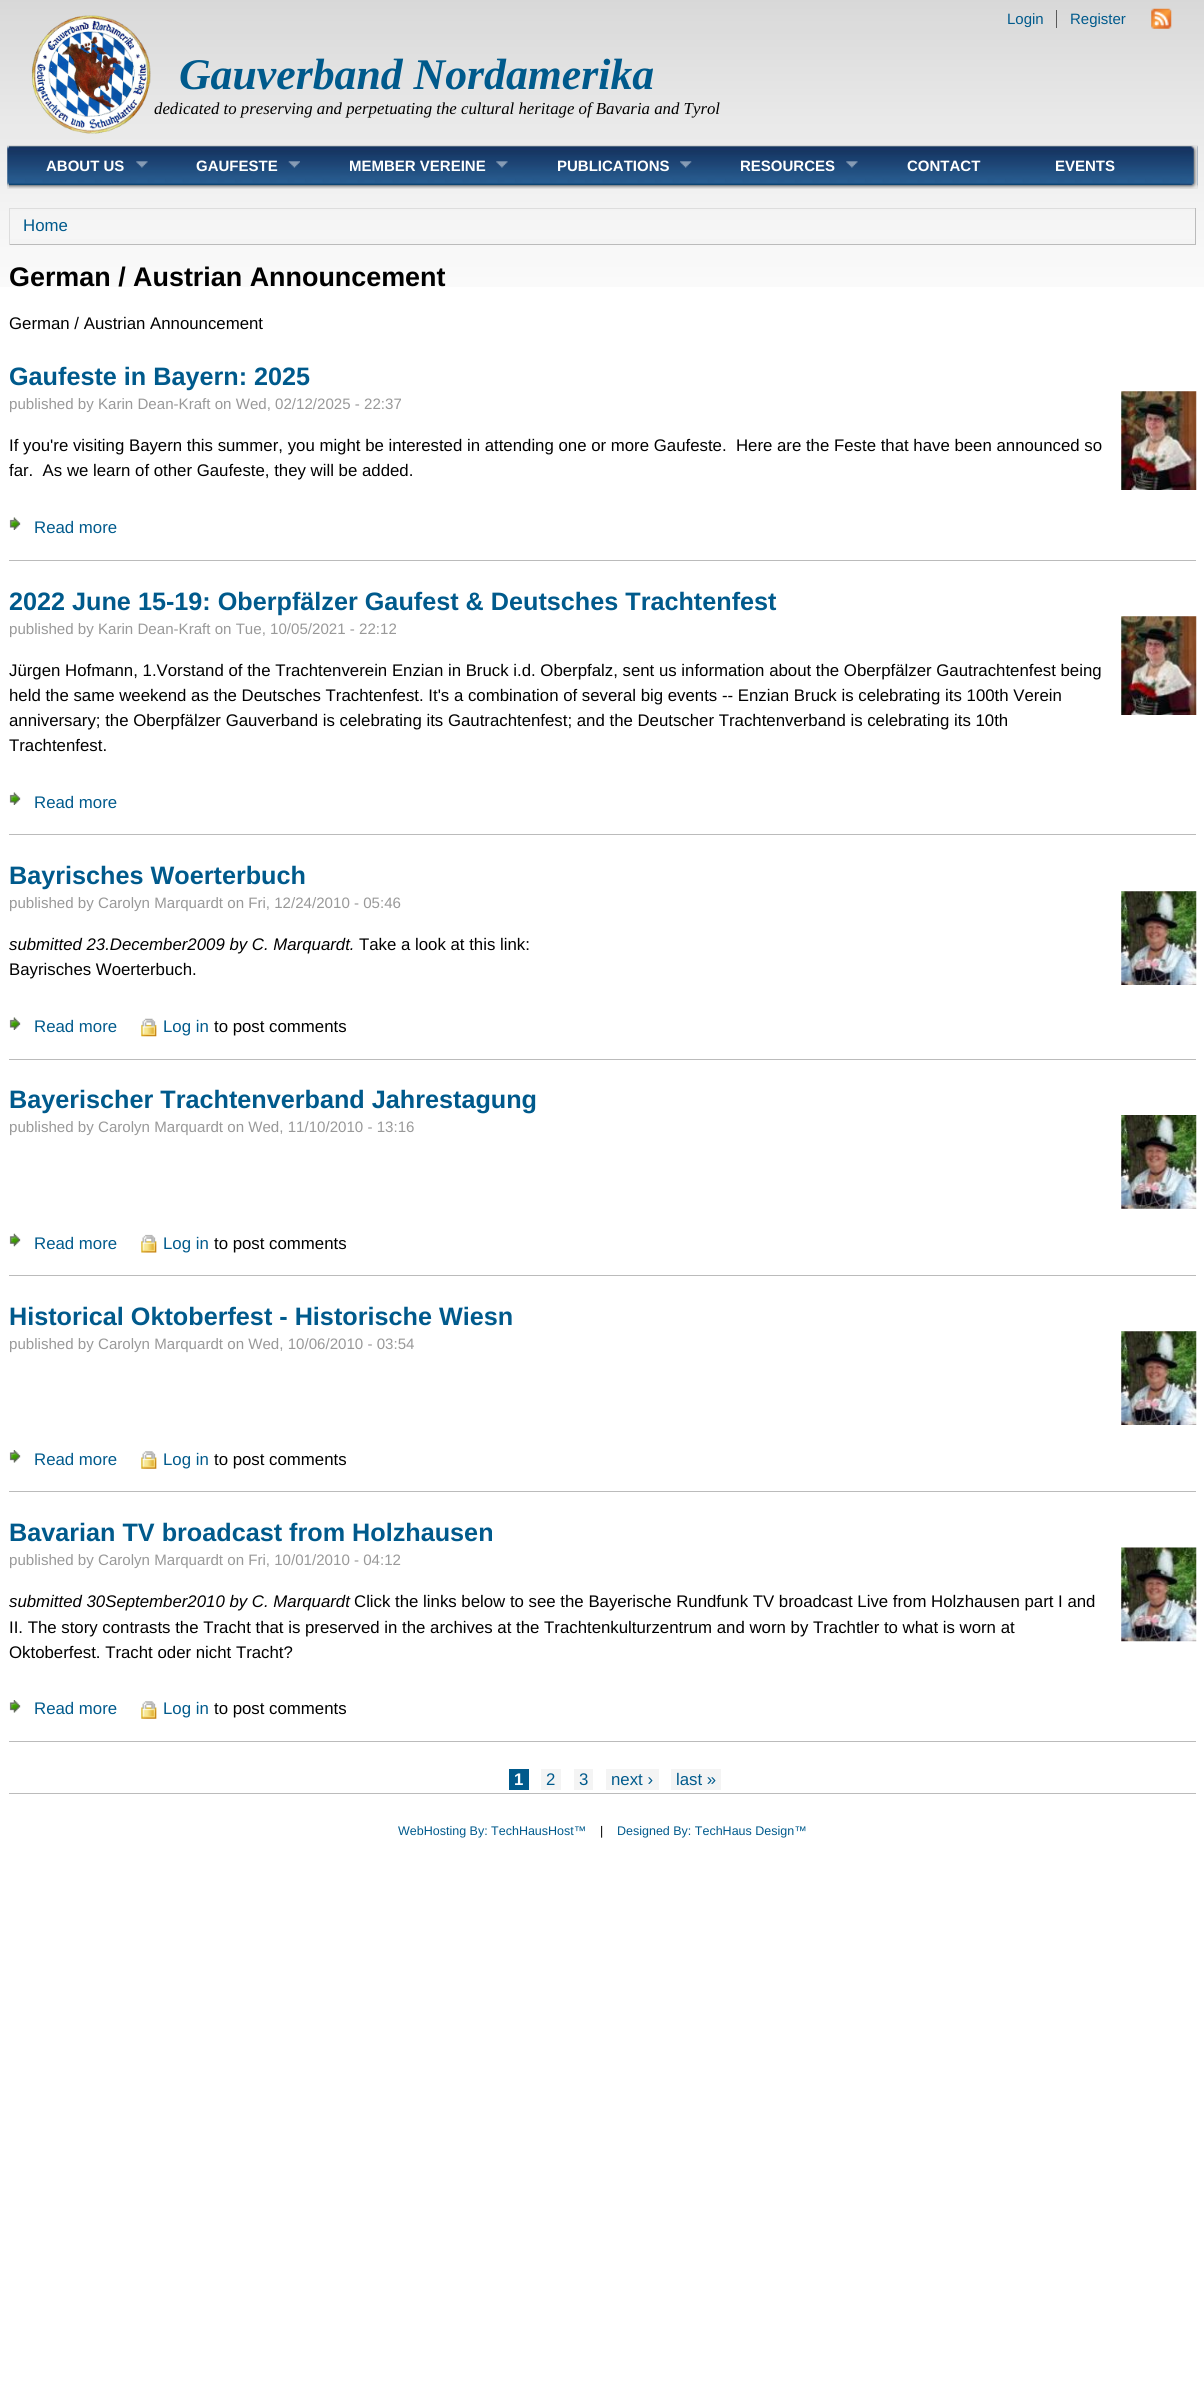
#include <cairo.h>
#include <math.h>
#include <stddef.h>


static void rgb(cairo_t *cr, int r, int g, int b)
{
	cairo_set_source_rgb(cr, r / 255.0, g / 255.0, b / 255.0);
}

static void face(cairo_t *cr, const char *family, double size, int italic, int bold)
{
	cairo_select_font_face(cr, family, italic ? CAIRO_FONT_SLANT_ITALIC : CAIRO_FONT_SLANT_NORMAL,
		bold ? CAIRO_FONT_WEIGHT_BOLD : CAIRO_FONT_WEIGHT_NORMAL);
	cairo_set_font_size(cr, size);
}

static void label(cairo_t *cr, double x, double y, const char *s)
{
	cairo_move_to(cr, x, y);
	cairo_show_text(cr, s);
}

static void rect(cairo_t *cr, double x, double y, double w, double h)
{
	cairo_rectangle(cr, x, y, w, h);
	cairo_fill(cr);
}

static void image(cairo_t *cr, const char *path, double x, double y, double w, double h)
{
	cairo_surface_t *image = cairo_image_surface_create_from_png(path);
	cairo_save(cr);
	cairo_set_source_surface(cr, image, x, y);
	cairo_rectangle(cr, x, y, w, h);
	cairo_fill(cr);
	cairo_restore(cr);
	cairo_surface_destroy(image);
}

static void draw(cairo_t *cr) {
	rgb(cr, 255, 255, 255);
	cairo_paint(cr);
	image(cr, "image0.png", 0, 0, 1204, 287);
	image(cr, "image1.png", 31, 15, 120, 119);
	face(cr, "Liberation Serif", 43.75, 1, 1);
	rgb(cr, 0, 90, 140);
	label(cr, 179, 89, "Gauverband Nordamerika");
	face(cr, "Liberation Serif", 16.8, 1, 0);
	rgb(cr, 0, 0, 0);
	label(cr, 154, 114, "dedicated to preserving and perpetuating the cultural heritage of Bavaria and Tyrol");
	face(cr, "Liberation Sans", 15, 0, 0);
	rgb(cr, 0, 90, 140);
	label(cr, 1007, 24, "Login");
	rgb(cr, 90, 90, 90);
	rect(cr, 1056, 10, 1, 18);
	rgb(cr, 0, 90, 140);
	label(cr, 1070, 24, "Register");
	image(cr, "image2.png", 1151, 8, 21, 21);
	image(cr, "image3.png", 7, 145, 1191, 44);
	image(cr, "image4.png", 7, 145, 2, 43);
	face(cr, "Liberation Sans", 15, 0, 1);
	rgb(cr, 255, 255, 255);
	label(cr, 46, 171, "ABOUT US");
	image(cr, "image5.png", 136, 161, 12, 7);
	label(cr, 196, 171, "GAUFESTE");
	image(cr, "image6.png", 288, 161, 12, 7);
	label(cr, 349, 171, "MEMBER VEREINE");
	image(cr, "image7.png", 496, 161, 12, 7);
	label(cr, 557, 171, "PUBLICATIONS");
	image(cr, "image8.png", 680, 161, 12, 7);
	label(cr, 740, 171, "RESOURCES");
	image(cr, "image9.png", 846, 161, 12, 7);
	label(cr, 907, 171, "CONTACT");
	label(cr, 1055, 171, "EVENTS");
	image(cr, "image10.png", 1180, 145, 18, 44);
	rgb(cr, 244, 244, 244);
	rect(cr, 10, 239, 1185, 5);
	rgb(cr, 221, 221, 221);
	rect(cr, 9, 208, 1187, 1);
	rgb(cr, 187, 187, 187);
	rect(cr, 1195, 208, 1, 37);
	rect(cr, 9, 244, 1187, 1);
	rgb(cr, 221, 221, 221);
	rect(cr, 9, 208, 1, 37);
	face(cr, "Liberation Sans", 16.8, 0, 0);
	rgb(cr, 0, 90, 140);
	label(cr, 23, 231, "Home");
	face(cr, "Liberation Sans", 26.9, 0, 1);
	rgb(cr, 0, 0, 0);
	label(cr, 9, 286, "German / Austrian Announcement");
	face(cr, "Liberation Sans", 16.8, 0, 0);
	label(cr, 9, 329, "German / Austrian Announcement");
	rgb(cr, 187, 187, 187);
	rect(cr, 9, 560, 1187, 1);
	face(cr, "Liberation Sans", 25.2, 0, 1);
	rgb(cr, 0, 90, 140);
	label(cr, 9, 385, "Gaufeste in Bayern: 2025");
	face(cr, "Liberation Sans", 15.1, 0, 0);
	rgb(cr, 153, 153, 153);
	label(cr, 9, 409, "published by Karin Dean-Kraft on Wed, 02/12/2025 - 22:37");
	image(cr, "image11.png", 1121, 391, 76, 99);
	face(cr, "Liberation Sans", 16.8, 0, 0);
	rgb(cr, 0, 0, 0);
	label(cr, 9, 451, "If you're visiting Bayern this summer, you might be interested in attending one or more Gaufeste.  Here are the Feste that have been announced so");
	label(cr, 9, 476, "far.  As we learn of other Gaufeste, they will be added.");
	image(cr, "image12.png", 9, 517, 12, 13);
	rgb(cr, 0, 90, 140);
	label(cr, 34, 533, "Read more");
	rgb(cr, 187, 187, 187);
	rect(cr, 9, 834, 1187, 1);
	face(cr, "Liberation Sans", 25.2, 0, 1);
	rgb(cr, 0, 90, 140);
	label(cr, 9, 610, "2022 June 15-19: Oberpfälzer Gaufest & Deutsches Trachtenfest");
	face(cr, "Liberation Sans", 15.1, 0, 0);
	rgb(cr, 153, 153, 153);
	label(cr, 9, 634, "published by Karin Dean-Kraft on Tue, 10/05/2021 - 22:12");
	image(cr, "image11.png", 1121, 616, 76, 99);
	face(cr, "Liberation Sans", 16.8, 0, 0);
	rgb(cr, 0, 0, 0);
	label(cr, 9, 676, "Jürgen Hofmann, 1.Vorstand of the Trachtenverein Enzian in Bruck i.d. Oberpfalz, sent us information about the Oberpfälzer Gautrachtenfest being");
	label(cr, 9, 701, "held the same weekend as the Deutsches Trachtenfest. It's a combination of several big events -- Enzian Bruck is celebrating its 100th Verein");
	label(cr, 9, 726, "anniversary; the Oberpfälzer Gauverband is celebrating its Gautrachtenfest; and the Deutscher Trachtenverband is celebrating its 10th");
	label(cr, 9, 751, "Trachtenfest.");
	image(cr, "image12.png", 9, 792, 12, 13);
	rgb(cr, 0, 90, 140);
	label(cr, 34, 808, "Read more");
	rgb(cr, 187, 187, 187);
	rect(cr, 9, 1059, 1187, 1);
	face(cr, "Liberation Sans", 25.2, 0, 1);
	rgb(cr, 0, 90, 140);
	label(cr, 9, 884, "Bayrisches Woerterbuch");
	face(cr, "Liberation Sans", 15.1, 0, 0);
	rgb(cr, 153, 153, 153);
	label(cr, 9, 908, "published by Carolyn Marquardt on Fri, 12/24/2010 - 05:46");
	image(cr, "image13.png", 1121, 891, 76, 94);
	face(cr, "Liberation Sans", 16.8, 1, 0);
	rgb(cr, 0, 0, 0);
	label(cr, 9, 950, "submitted 23.December2009 by C. Marquardt.");
	face(cr, "Liberation Sans", 16.8, 0, 0);
	label(cr, 359, 950, "Take a look at this link:");
	label(cr, 9, 975, "Bayrisches Woerterbuch.");
	image(cr, "image12.png", 9, 1017, 12, 13);
	rgb(cr, 0, 90, 140);
	label(cr, 34, 1032, "Read more");
	image(cr, "image14.png", 141, 1018, 16, 19);
	label(cr, 163, 1032, "Log in");
	rgb(cr, 0, 0, 0);
	label(cr, 214, 1032, "to post comments");
	rgb(cr, 187, 187, 187);
	rect(cr, 9, 1275, 1187, 1);
	face(cr, "Liberation Sans", 25.2, 0, 1);
	rgb(cr, 0, 90, 140);
	label(cr, 9, 1108, "Bayerischer Trachtenverband Jahrestagung");
	face(cr, "Liberation Sans", 15.1, 0, 0);
	rgb(cr, 153, 153, 153);
	label(cr, 9, 1132, "published by Carolyn Marquardt on Wed, 11/10/2010 - 13:16");
	image(cr, "image15.png", 1121, 1115, 76, 94);
	image(cr, "image16.png", 9, 1233, 12, 14);
	face(cr, "Liberation Sans", 16.8, 0, 0);
	rgb(cr, 0, 90, 140);
	label(cr, 34, 1249, "Read more");
	image(cr, "image17.png", 141, 1234, 16, 19);
	label(cr, 163, 1249, "Log in");
	rgb(cr, 0, 0, 0);
	label(cr, 214, 1249, "to post comments");
	rgb(cr, 187, 187, 187);
	rect(cr, 9, 1491, 1187, 1);
	face(cr, "Liberation Sans", 25.2, 0, 1);
	rgb(cr, 0, 90, 140);
	label(cr, 9, 1325, "Historical Oktoberfest - Historische Wiesn");
	face(cr, "Liberation Sans", 15.1, 0, 0);
	rgb(cr, 153, 153, 153);
	label(cr, 9, 1349, "published by Carolyn Marquardt on Wed, 10/06/2010 - 03:54");
	image(cr, "image13.png", 1121, 1331, 76, 94);
	image(cr, "image18.png", 9, 1450, 12, 13);
	face(cr, "Liberation Sans", 16.8, 0, 0);
	rgb(cr, 0, 90, 140);
	label(cr, 34, 1465, "Read more");
	image(cr, "image19.png", 141, 1451, 16, 18);
	label(cr, 163, 1465, "Log in");
	rgb(cr, 0, 0, 0);
	label(cr, 214, 1465, "to post comments");
	rgb(cr, 187, 187, 187);
	rect(cr, 9, 1741, 1187, 1);
	face(cr, "Liberation Sans", 25.2, 0, 1);
	rgb(cr, 0, 90, 140);
	label(cr, 9, 1541, "Bavarian TV broadcast from Holzhausen");
	face(cr, "Liberation Sans", 15.1, 0, 0);
	rgb(cr, 153, 153, 153);
	label(cr, 9, 1565, "published by Carolyn Marquardt on Fri, 10/01/2010 - 04:12");
	image(cr, "image20.png", 1121, 1547, 76, 95);
	face(cr, "Liberation Sans", 16.8, 1, 0);
	rgb(cr, 0, 0, 0);
	label(cr, 9, 1607, "submitted 30September2010 by C. Marquardt");
	face(cr, "Liberation Sans", 16.8, 0, 0);
	label(cr, 354, 1607, "Click the links below to see the Bayerische Rundfunk TV broadcast Live from Holzhausen part I and");
	label(cr, 9, 1633, "II. The story contrasts the Tracht that is preserved in the archives at the Trachtenkulturzentrum and worn by Trachtler to what is worn at");
	label(cr, 9, 1658, "Oktoberfest. Tracht oder nicht Tracht?");
	image(cr, "image18.png", 9, 1700, 12, 13);
	rgb(cr, 0, 90, 140);
	label(cr, 34, 1714, "Read more");
	image(cr, "image19.png", 141, 1701, 16, 18);
	label(cr, 163, 1714, "Log in");
	rgb(cr, 0, 0, 0);
	label(cr, 214, 1714, "to post comments");
	rgb(cr, 0, 90, 140);
	rect(cr, 509, 1769, 20, 21);
	face(cr, "Liberation Sans", 16.8, 0, 1);
	rgb(cr, 255, 255, 255);
	label(cr, 514, 1785, "1");
	rgb(cr, 244, 244, 244);
	rect(cr, 541, 1769, 20, 21);
	face(cr, "Liberation Sans", 16.8, 0, 0);
	rgb(cr, 0, 90, 140);
	label(cr, 546, 1785, "2");
	rgb(cr, 244, 244, 244);
	rect(cr, 574, 1769, 19, 21);
	rgb(cr, 0, 90, 140);
	label(cr, 579, 1785, "3");
	rgb(cr, 244, 244, 244);
	rect(cr, 606, 1769, 53, 21);
	rgb(cr, 0, 90, 140);
	label(cr, 611, 1785, "next ›");
	rgb(cr, 244, 244, 244);
	rect(cr, 671, 1769, 50, 21);
	rgb(cr, 0, 90, 140);
	label(cr, 676, 1785, "last »");
	rgb(cr, 187, 187, 187);
	rect(cr, 9, 1793, 1187, 1);
	face(cr, "Liberation Sans", 12.5, 0, 0);
	rgb(cr, 0, 90, 140);
	label(cr, 398, 1835, "WebHosting By: TechHausHost™");
	rgb(cr, 0, 0, 0);
	label(cr, 600, 1835, "|");
	rgb(cr, 0, 90, 140);
	label(cr, 617, 1835, "Designed By: TechHaus Design™");
}

int main(void) {
	cairo_surface_t *surface = cairo_image_surface_create(CAIRO_FORMAT_RGB24, 1204, 2385);
	cairo_t *cr = cairo_create(surface);
	cairo_font_options_t *options = cairo_font_options_create();
	cairo_font_options_set_hint_metrics(options, CAIRO_HINT_METRICS_OFF);
	cairo_font_options_set_hint_style(options, CAIRO_HINT_STYLE_NONE);
	cairo_set_font_options(cr, options);
	cairo_set_miter_limit(cr, 4);
	draw(cr);
	cairo_surface_write_to_png(surface, "render.png");
	cairo_font_options_destroy(options);
	cairo_destroy(cr);
	cairo_surface_destroy(surface);
	return 0;
}
